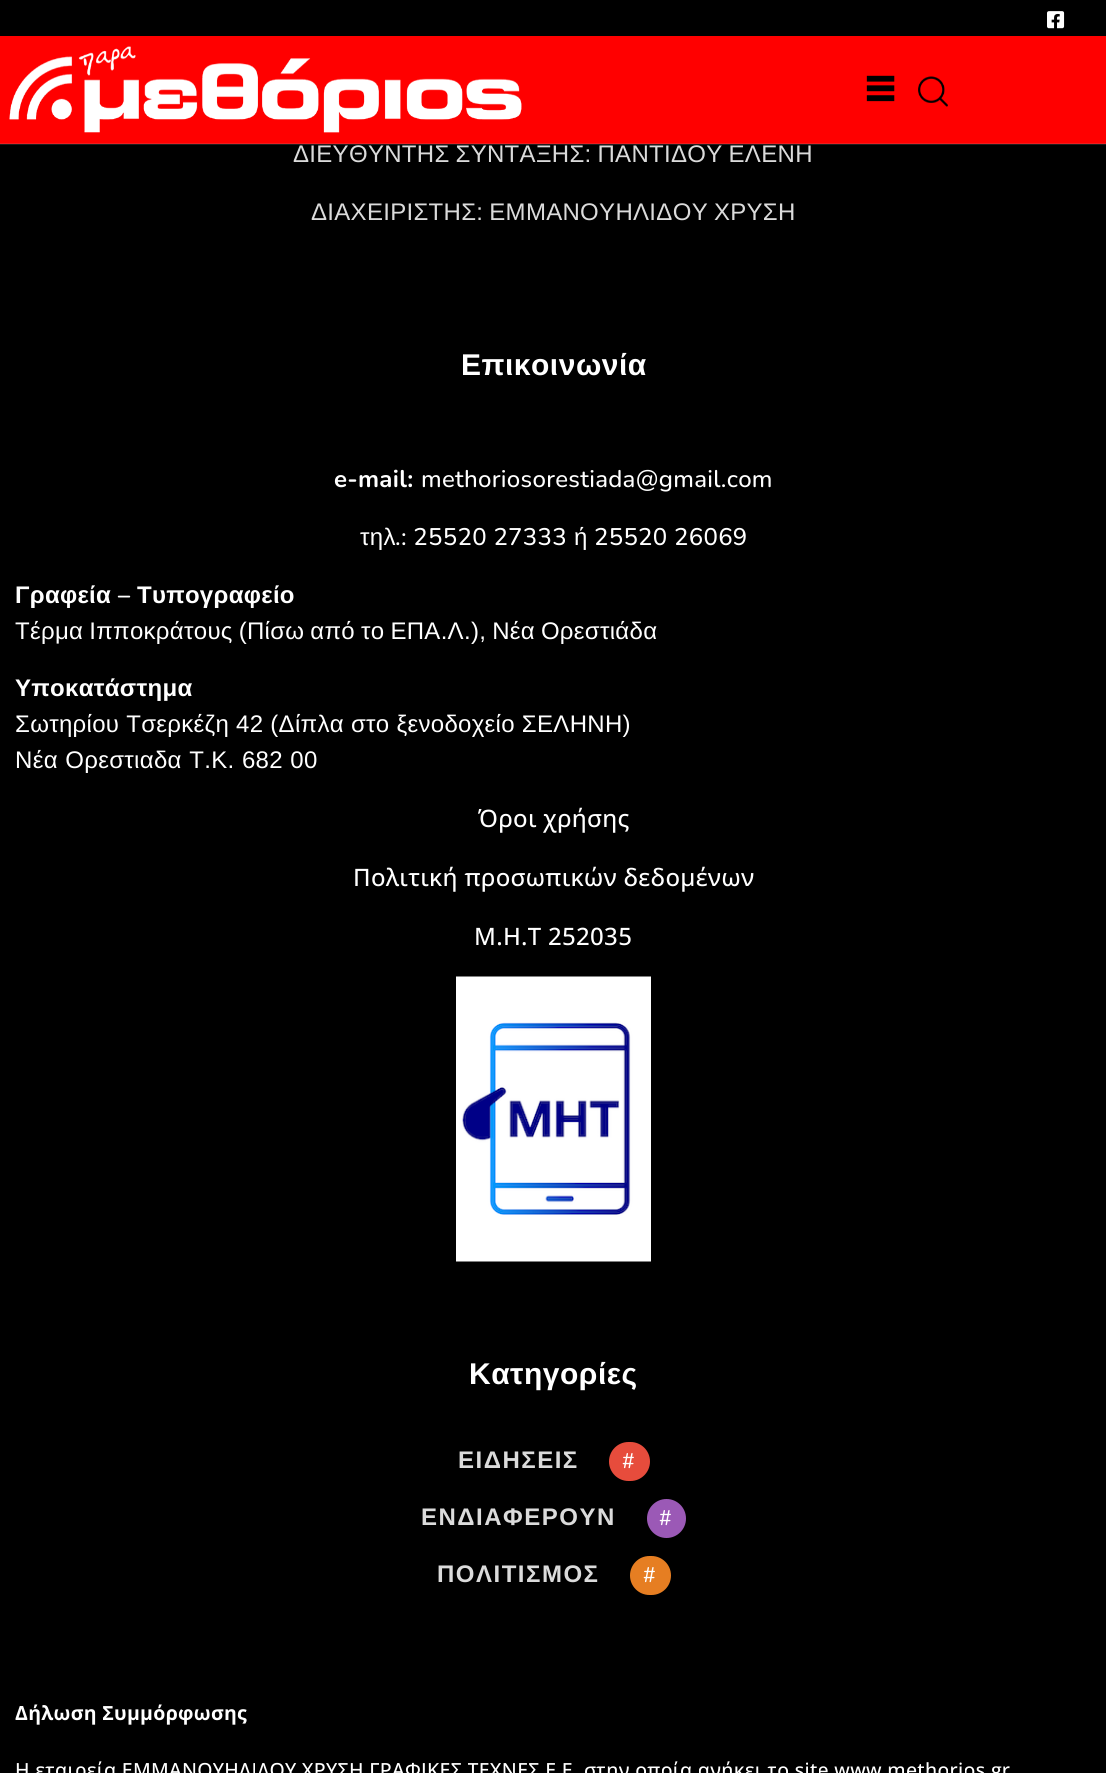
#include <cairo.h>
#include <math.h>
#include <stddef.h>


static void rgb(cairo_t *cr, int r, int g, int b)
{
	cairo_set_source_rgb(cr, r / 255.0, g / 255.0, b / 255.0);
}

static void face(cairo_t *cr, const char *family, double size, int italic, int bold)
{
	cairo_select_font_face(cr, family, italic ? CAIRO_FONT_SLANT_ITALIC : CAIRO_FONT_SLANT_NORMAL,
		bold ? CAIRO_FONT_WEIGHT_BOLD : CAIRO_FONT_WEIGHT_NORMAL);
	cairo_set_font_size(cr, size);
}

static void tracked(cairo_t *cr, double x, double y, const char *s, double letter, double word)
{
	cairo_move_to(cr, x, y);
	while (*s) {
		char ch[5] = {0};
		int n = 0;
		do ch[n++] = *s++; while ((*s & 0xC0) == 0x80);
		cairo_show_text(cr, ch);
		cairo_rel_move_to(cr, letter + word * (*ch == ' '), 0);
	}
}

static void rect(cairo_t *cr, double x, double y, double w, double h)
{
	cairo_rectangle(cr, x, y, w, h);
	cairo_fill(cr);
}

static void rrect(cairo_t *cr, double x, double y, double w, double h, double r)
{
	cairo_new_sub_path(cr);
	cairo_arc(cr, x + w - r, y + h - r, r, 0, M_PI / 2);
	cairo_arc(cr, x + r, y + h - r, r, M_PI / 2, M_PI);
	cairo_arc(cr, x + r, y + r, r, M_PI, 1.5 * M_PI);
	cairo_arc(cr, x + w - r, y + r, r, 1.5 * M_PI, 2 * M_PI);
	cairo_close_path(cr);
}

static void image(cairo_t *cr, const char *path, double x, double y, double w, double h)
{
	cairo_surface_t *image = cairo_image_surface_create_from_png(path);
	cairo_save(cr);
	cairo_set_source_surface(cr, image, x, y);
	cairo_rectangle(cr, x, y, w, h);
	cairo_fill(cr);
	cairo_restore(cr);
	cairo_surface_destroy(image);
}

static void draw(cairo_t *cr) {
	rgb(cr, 0, 0, 0);
	cairo_paint(cr);
	image(cr, "image0.png", 1047, 11, 18, 18);
	rgb(cr, 255, 0, 0);
	rect(cr, 0, 36, 1106, 107);
	rgb(cr, 239, 29, 30);
	rect(cr, 0, 143, 1106, 1);
	image(cr, "image1.png", 9, 46, 513, 87);
	image(cr, "image2.png", 866, 75, 29, 27);
	image(cr, "image3.png", 918, 76, 30, 31);
	rgb(cr, 28, 29, 30);
	rect(cr, 0, 144, 1106, 1);
	face(cr, "Liberation Sans", 24, 0, 0);
	rgb(cr, 219, 219, 219);
	tracked(cr, 293, 162, "ΔΙΕΥΘΥΝΤΗΣ ΣΥΝΤΑΞΗΣ: ΠΑΝΤΙΔΟΥ ΕΛΕΝΗ", 0.3, -1);
	tracked(cr, 311, 220, "ΔΙΑΧΕΙΡΙΣΤΗΣ: ΕΜΜΑΝΟΥΗΛΙΔΟΥ ΧΡΥΣΗ", 0.3, -1);
	face(cr, "Liberation Sans", 30, 0, 1);
	rgb(cr, 255, 255, 255);
	tracked(cr, 461, 375, "Επικοινωνία", 0.5, 0);
	face(cr, "Nunito", 24, 0, 1);
	tracked(cr, 334, 487, "e-mail:", 0.3, 0);
	face(cr, "Nunito Medium", 24, 0, 0);
	tracked(cr, 421, 487, "methoriosorestiada@gmail.com", 0.3, 0);
	face(cr, "Liberation Sans", 24, 0, 0);
	tracked(cr, 360, 545, "τηλ", 0.3, 0);
	face(cr, "Nunito Medium", 24, 0, 0);
	tracked(cr, 395, 545, ".: 25520 27333", 0.3, 0);
	face(cr, "Liberation Sans", 24, 0, 0);
	tracked(cr, 574, 545, "ή", 0.3, 0);
	face(cr, "Nunito Medium", 24, 0, 0);
	tracked(cr, 594, 545, "25520 26069", 0.3, 0);
	face(cr, "Liberation Sans", 24, 0, 1);
	tracked(cr, 15, 603, "Γραφεία", 0.3, 0);
	face(cr, "Nunito", 24, 0, 1);
	tracked(cr, 118, 603, "–", 0.3, 0);
	face(cr, "Liberation Sans", 24, 0, 1);
	tracked(cr, 137, 603, "Τυπογραφείο", 0.3, 0);
	face(cr, "Liberation Sans", 24, 0, 0);
	tracked(cr, 15, 639, "Τέρμα Ιπποκράτους (Πίσω από το ΕΠΑ.Λ.), Νέα Ορεστιάδα", 0.3, -1);
	face(cr, "Liberation Sans", 24, 0, 1);
	tracked(cr, 15, 696, "Υποκατάστημα", 0.3, 0);
	face(cr, "Liberation Sans", 24, 0, 0);
	tracked(cr, 15, 732, "Σωτηρίου Τσερκέζη 42 (Δίπλα στο ξενοδοχείο ΣΕΛΗΝΗ)", 0.3, 0);
	tracked(cr, 15, 768, "Νέα Ορεστιαδα Τ.Κ. 682 00", 0.3, 0.5);
	face(cr, "Open Sans Medium", 24, 0, 0);
	tracked(cr, 478, 827, "Όροι χρήσης", 0.3, 0);
	tracked(cr, 353, 886, "Πολιτική προσωπικών δεδομένων", 0.3, 0);
	tracked(cr, 474, 945, "Μ.Η.Τ 252035", 0.3, 0);
	image(cr, "image4.png", 456, 976, 195, 286);
	face(cr, "Liberation Sans", 30, 0, 1);
	tracked(cr, 469, 1384, "Κατηγορίες", 0.5, 0);
	face(cr, "Liberation Sans", 24, 0, 1);
	rgb(cr, 219, 219, 219);
	tracked(cr, 458, 1468, "ΕΙΔΗΣΕΙΣ", 1.5, 0);
	rgb(cr, 231, 76, 60);
	rrect(cr, 609, 1442, 41, 39, 19.5);
	cairo_fill(cr);
	face(cr, "Nunito Medium", 21, 0, 0);
	rgb(cr, 255, 255, 255);
	tracked(cr, 622, 1468, "#", 0.5, 0);
	face(cr, "Liberation Sans", 24, 0, 1);
	rgb(cr, 219, 219, 219);
	tracked(cr, 421, 1525, "ΕΝΔΙΑΦΕΡΟΥΝ", 1.5, 0);
	rgb(cr, 155, 89, 182);
	cairo_new_path(cr);
	cairo_arc(cr, 666.5, 1518.5, 19.5, 0, 2 * M_PI);
	cairo_fill(cr);
	face(cr, "Nunito Medium", 21, 0, 0);
	rgb(cr, 255, 255, 255);
	tracked(cr, 659, 1525, "#", 0.5, 0);
	face(cr, "Liberation Sans", 24, 0, 1);
	rgb(cr, 219, 219, 219);
	tracked(cr, 437, 1582, "ΠΟΛΙΤΙΣΜΟΣ", 1.5, 0);
	rgb(cr, 230, 126, 34);
	rrect(cr, 630, 1556, 41, 39, 19.5);
	cairo_fill(cr);
	face(cr, "Nunito Medium", 21, 0, 0);
	rgb(cr, 255, 255, 255);
	tracked(cr, 643, 1582, "#", 0.5, 0);
	face(cr, "Open Sans", 19.5, 0, 1);
	tracked(cr, 15, 1720, "Δήλωση Συμμόρφωσης", 0.3, 0);
	face(cr, "Open Sans Medium", 19.5, 0, 0);
	tracked(cr, 15, 1777, "Η εταιρεία ΕΜΜΑΝΟΥΗΛΙΔΟΥ ΧΡΥΣΗ ΓΡΑΦΙΚΕΣ ΤΕΧΝΕΣ Ε.Ε. στην οποία ανήκει το site www.methorios.gr", 0.3, 0);
}

int main(void) {
	cairo_surface_t *surface = cairo_image_surface_create(CAIRO_FORMAT_RGB24, 1106, 1773);
	cairo_t *cr = cairo_create(surface);
	cairo_font_options_t *options = cairo_font_options_create();
	cairo_font_options_set_hint_metrics(options, CAIRO_HINT_METRICS_OFF);
	cairo_font_options_set_hint_style(options, CAIRO_HINT_STYLE_NONE);
	cairo_set_font_options(cr, options);
	cairo_set_miter_limit(cr, 4);
	draw(cr);
	cairo_surface_write_to_png(surface, "render.png");
	cairo_font_options_destroy(options);
	cairo_destroy(cr);
	cairo_surface_destroy(surface);
	return 0;
}
